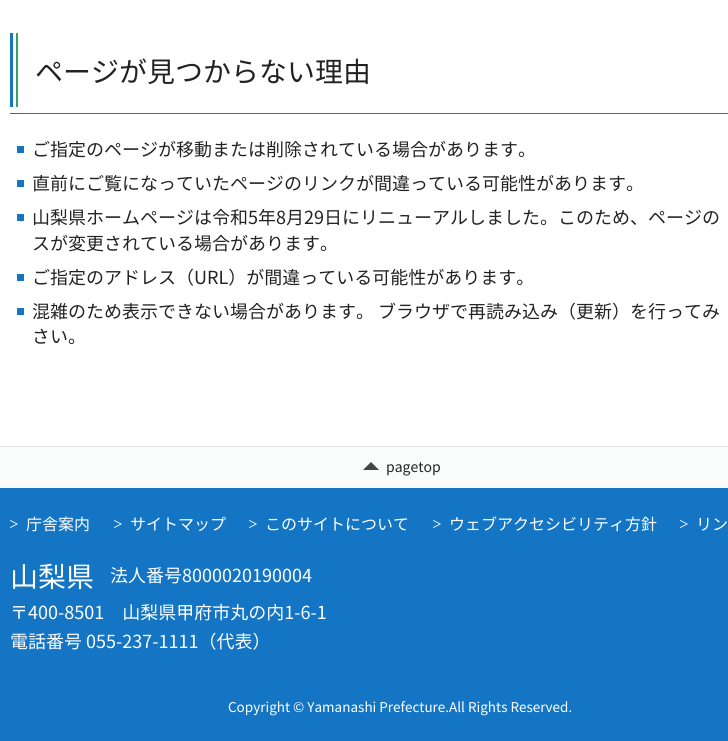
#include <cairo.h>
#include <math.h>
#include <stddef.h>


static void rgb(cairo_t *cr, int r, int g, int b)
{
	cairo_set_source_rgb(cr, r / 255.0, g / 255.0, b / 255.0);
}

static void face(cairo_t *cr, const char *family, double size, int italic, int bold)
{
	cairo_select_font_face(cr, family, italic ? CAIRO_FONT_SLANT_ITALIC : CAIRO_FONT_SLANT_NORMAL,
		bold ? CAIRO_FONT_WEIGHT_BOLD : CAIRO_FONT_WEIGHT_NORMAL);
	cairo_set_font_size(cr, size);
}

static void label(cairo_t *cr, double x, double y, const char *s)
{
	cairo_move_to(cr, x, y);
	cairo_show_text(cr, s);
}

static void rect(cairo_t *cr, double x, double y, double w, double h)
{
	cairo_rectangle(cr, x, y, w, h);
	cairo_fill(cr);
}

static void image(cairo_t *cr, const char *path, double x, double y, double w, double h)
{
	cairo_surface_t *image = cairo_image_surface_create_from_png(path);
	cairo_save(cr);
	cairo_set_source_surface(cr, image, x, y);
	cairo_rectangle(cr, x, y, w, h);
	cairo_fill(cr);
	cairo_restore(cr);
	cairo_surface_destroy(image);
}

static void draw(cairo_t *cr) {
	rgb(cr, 255, 255, 255);
	cairo_paint(cr);
	rgb(cr, 20, 117, 196);
	rect(cr, 10, 113, 718, 1);
	image(cr, "image0.png", 10, 33, 8, 74);
	face(cr, "Noto Sans JP", 28, 0, 0);
	rgb(cr, 34, 34, 34);
	label(cr, 35, 82, "ページが見つからない理由");
	rgb(cr, 20, 117, 196);
	rect(cr, 17, 146, 7, 7);
	face(cr, "Noto Sans JP", 18, 0, 0);
	rgb(cr, 34, 34, 34);
	label(cr, 32, 156, "ご指定のページが移動または削除されている場合があります。");
	rgb(cr, 20, 117, 196);
	rect(cr, 17, 180, 7, 7);
	rgb(cr, 34, 34, 34);
	label(cr, 32, 190, "直前にご覧になっていたページのリンクが間違っている可能性があります。");
	rgb(cr, 20, 117, 196);
	rect(cr, 17, 214, 7, 7);
	rgb(cr, 34, 34, 34);
	label(cr, 32, 224, "山梨県ホームページは令和5年8月29日にリニューアルしました。このため、ページの");
	label(cr, 32, 250, "スが変更されている場合があります。");
	rgb(cr, 20, 117, 196);
	rect(cr, 17, 274, 7, 7);
	rgb(cr, 34, 34, 34);
	label(cr, 32, 284, "ご指定のアドレス（URL）が間違っている可能性があります。");
	rgb(cr, 20, 117, 196);
	rect(cr, 17, 308, 7, 7);
	rgb(cr, 34, 34, 34);
	label(cr, 32, 318, "混雑のため表示できない場合があります。 ブラウザで再読み込み（更新）を行ってみ");
	label(cr, 32, 343, "さい。");
	rgb(cr, 250, 252, 252);
	rect(cr, 0, 447, 728, 41);
	rgb(cr, 229, 229, 229);
	rect(cr, 0, 446, 728, 1);
	rgb(cr, 67, 67, 67);
	cairo_new_path(cr);
	cairo_move_to(cr, 379, 470);
	cairo_line_to(cr, 363, 470);
	cairo_line_to(cr, 371, 462);
	cairo_close_path(cr);
	cairo_fill(cr);
	face(cr, "Noto Sans JP", 14, 0, 0);
	rgb(cr, 34, 34, 34);
	label(cr, 386, 472, "pagetop");
	rgb(cr, 20, 117, 196);
	rect(cr, 0, 488, 728, 253);
	image(cr, "image1.png", 10, 520, 8, 8);
	face(cr, "Noto Sans JP", 16, 0, 0);
	rgb(cr, 255, 255, 255);
	label(cr, 26, 530, "庁舎案内");
	image(cr, "image1.png", 114, 520, 8, 8);
	label(cr, 130, 530, "サイトマップ");
	image(cr, "image1.png", 249, 520, 8, 8);
	label(cr, 265, 530, "このサイトについて");
	image(cr, "image1.png", 433, 520, 8, 8);
	label(cr, 449, 530, "ウェブアクセシビリティ方針");
	image(cr, "image1.png", 680, 520, 8, 8);
	label(cr, 696, 530, "リン");
	face(cr, "Noto Sans JP", 28, 0, 0);
	label(cr, 10, 587, "山梨県");
	face(cr, "Noto Sans JP", 18, 0, 0);
	label(cr, 110, 582, "法人番号8000020190004");
	label(cr, 10, 619, "〒400-8501　山梨県甲府市丸の内1-6-1");
	label(cr, 10, 648, "電話番号 055-237-1111（代表）");
	face(cr, "Noto Sans JP", 13.5, 0, 0);
	label(cr, 228, 712, "Copyright © Yamanashi Prefecture.All Rights Reserved.");
}

int main(void) {
	cairo_surface_t *surface = cairo_image_surface_create(CAIRO_FORMAT_RGB24, 728, 741);
	cairo_t *cr = cairo_create(surface);
	cairo_font_options_t *options = cairo_font_options_create();
	cairo_font_options_set_hint_metrics(options, CAIRO_HINT_METRICS_OFF);
	cairo_font_options_set_hint_style(options, CAIRO_HINT_STYLE_NONE);
	cairo_set_font_options(cr, options);
	cairo_set_miter_limit(cr, 4);
	draw(cr);
	cairo_surface_write_to_png(surface, "render.png");
	cairo_font_options_destroy(options);
	cairo_destroy(cr);
	cairo_surface_destroy(surface);
	return 0;
}
